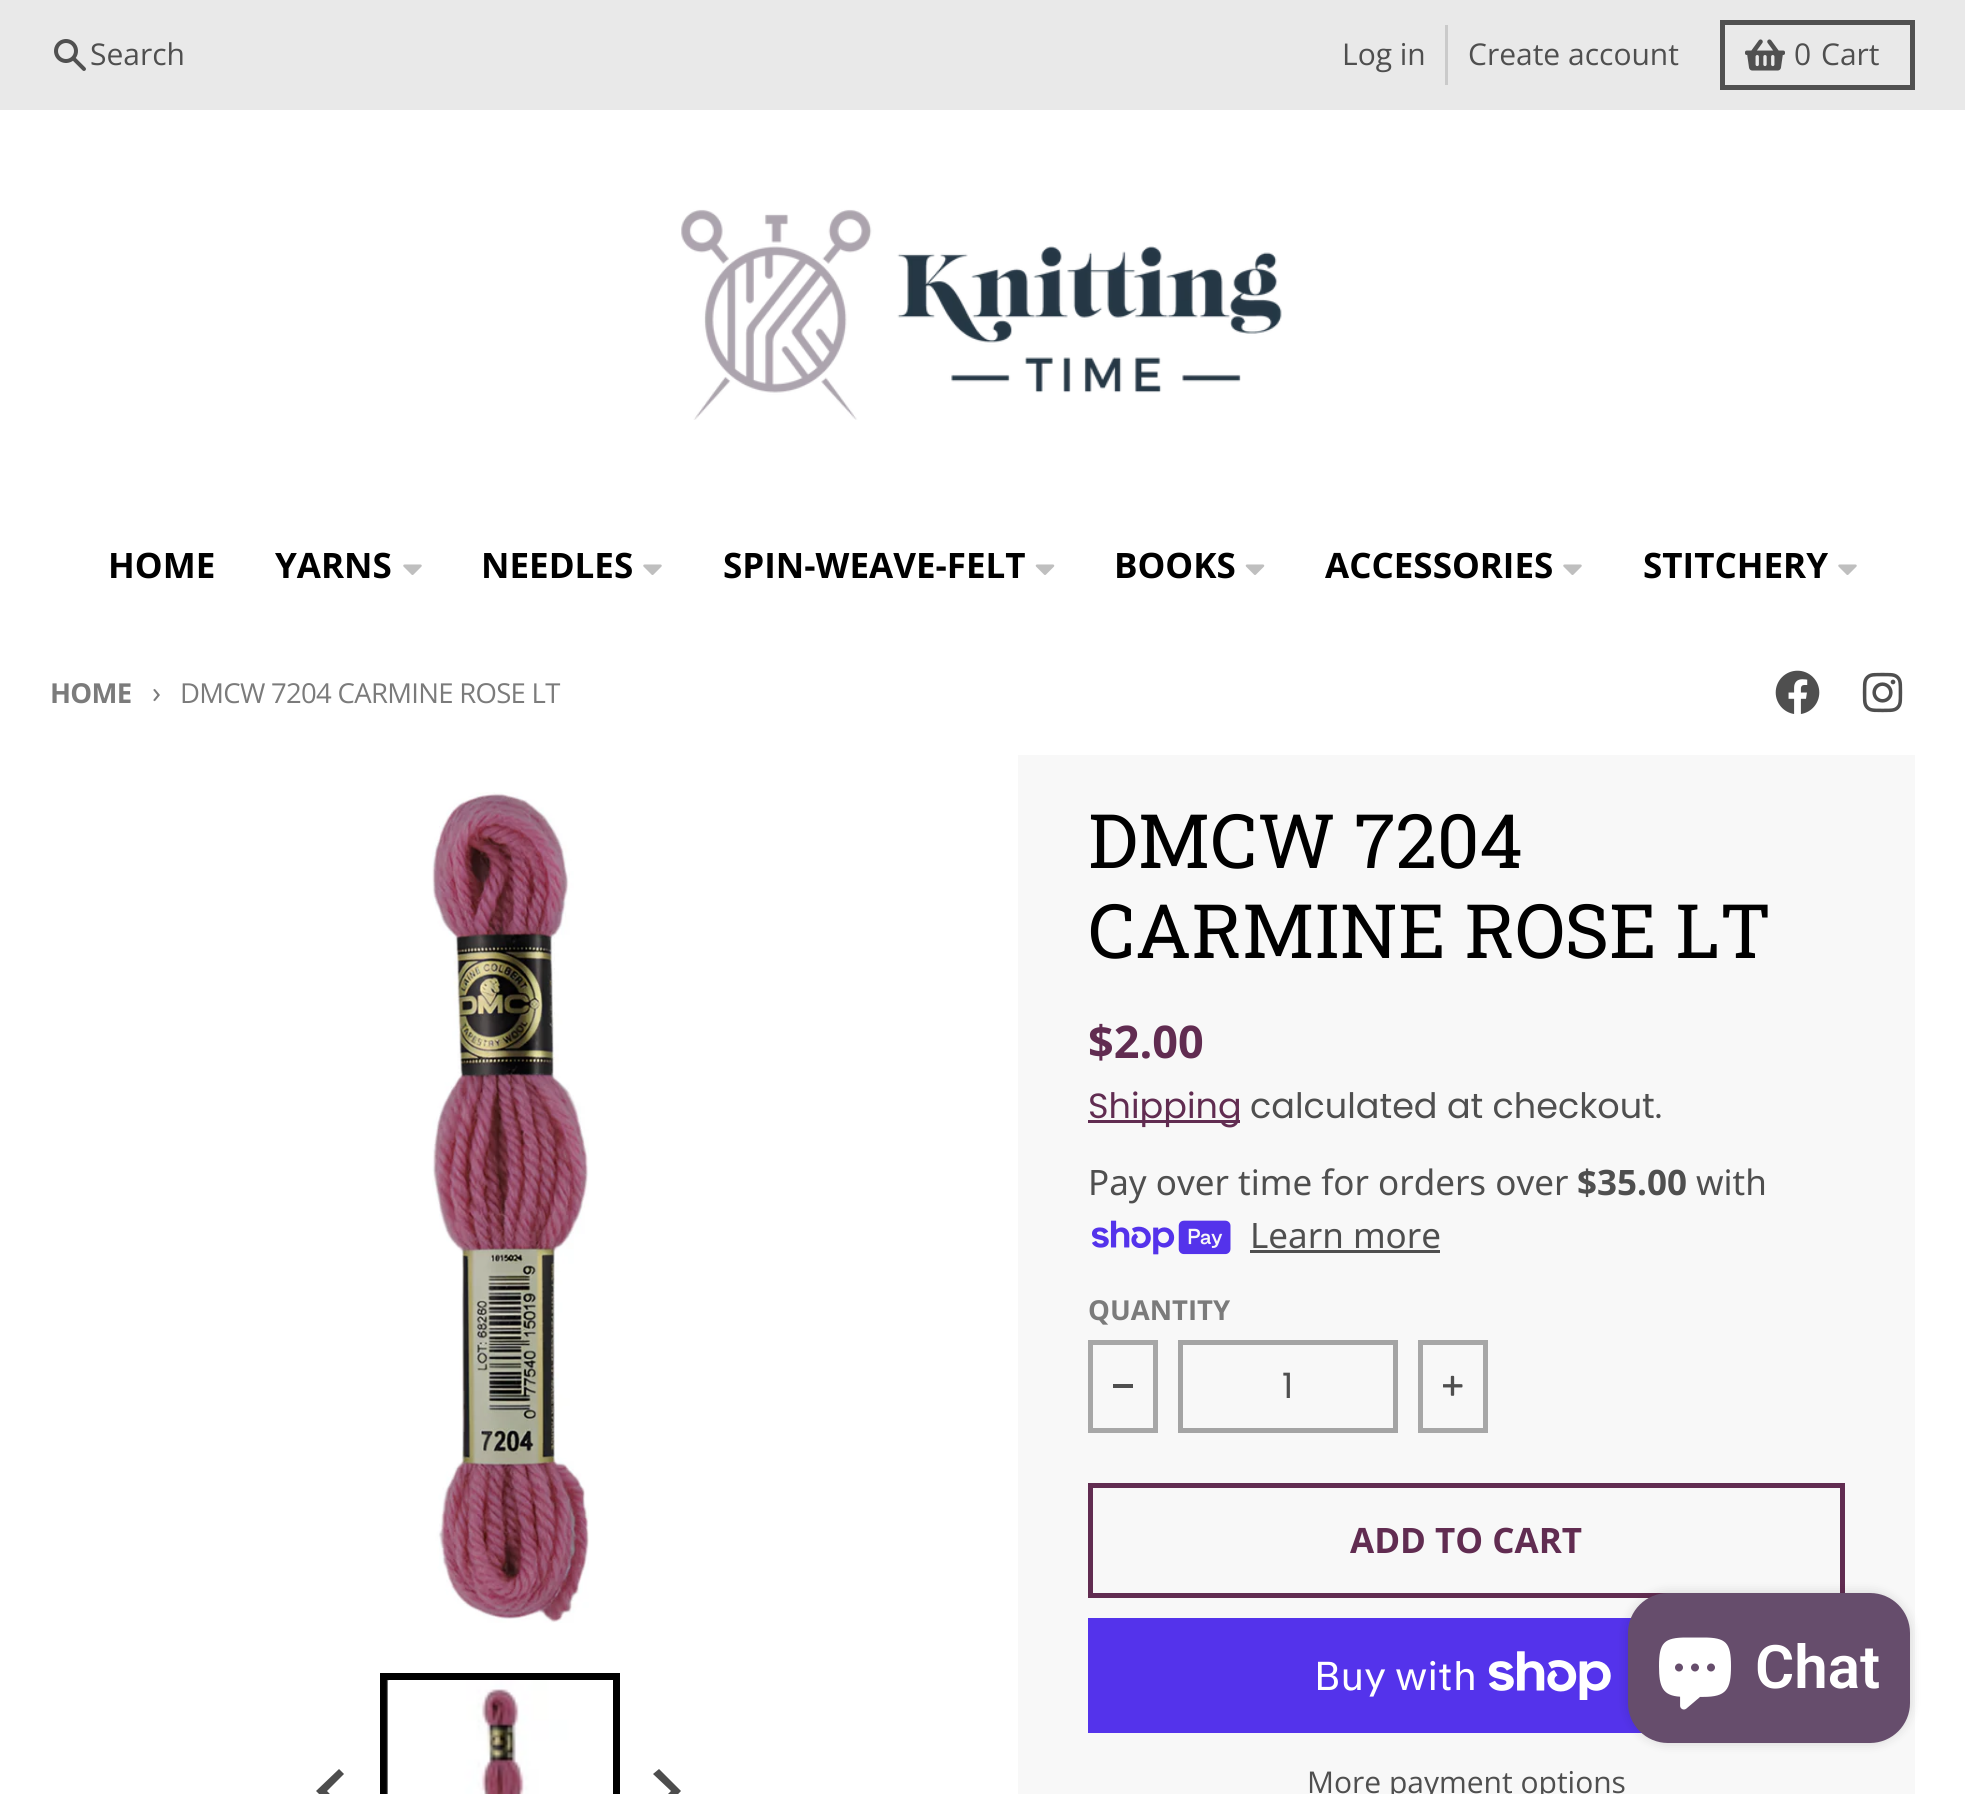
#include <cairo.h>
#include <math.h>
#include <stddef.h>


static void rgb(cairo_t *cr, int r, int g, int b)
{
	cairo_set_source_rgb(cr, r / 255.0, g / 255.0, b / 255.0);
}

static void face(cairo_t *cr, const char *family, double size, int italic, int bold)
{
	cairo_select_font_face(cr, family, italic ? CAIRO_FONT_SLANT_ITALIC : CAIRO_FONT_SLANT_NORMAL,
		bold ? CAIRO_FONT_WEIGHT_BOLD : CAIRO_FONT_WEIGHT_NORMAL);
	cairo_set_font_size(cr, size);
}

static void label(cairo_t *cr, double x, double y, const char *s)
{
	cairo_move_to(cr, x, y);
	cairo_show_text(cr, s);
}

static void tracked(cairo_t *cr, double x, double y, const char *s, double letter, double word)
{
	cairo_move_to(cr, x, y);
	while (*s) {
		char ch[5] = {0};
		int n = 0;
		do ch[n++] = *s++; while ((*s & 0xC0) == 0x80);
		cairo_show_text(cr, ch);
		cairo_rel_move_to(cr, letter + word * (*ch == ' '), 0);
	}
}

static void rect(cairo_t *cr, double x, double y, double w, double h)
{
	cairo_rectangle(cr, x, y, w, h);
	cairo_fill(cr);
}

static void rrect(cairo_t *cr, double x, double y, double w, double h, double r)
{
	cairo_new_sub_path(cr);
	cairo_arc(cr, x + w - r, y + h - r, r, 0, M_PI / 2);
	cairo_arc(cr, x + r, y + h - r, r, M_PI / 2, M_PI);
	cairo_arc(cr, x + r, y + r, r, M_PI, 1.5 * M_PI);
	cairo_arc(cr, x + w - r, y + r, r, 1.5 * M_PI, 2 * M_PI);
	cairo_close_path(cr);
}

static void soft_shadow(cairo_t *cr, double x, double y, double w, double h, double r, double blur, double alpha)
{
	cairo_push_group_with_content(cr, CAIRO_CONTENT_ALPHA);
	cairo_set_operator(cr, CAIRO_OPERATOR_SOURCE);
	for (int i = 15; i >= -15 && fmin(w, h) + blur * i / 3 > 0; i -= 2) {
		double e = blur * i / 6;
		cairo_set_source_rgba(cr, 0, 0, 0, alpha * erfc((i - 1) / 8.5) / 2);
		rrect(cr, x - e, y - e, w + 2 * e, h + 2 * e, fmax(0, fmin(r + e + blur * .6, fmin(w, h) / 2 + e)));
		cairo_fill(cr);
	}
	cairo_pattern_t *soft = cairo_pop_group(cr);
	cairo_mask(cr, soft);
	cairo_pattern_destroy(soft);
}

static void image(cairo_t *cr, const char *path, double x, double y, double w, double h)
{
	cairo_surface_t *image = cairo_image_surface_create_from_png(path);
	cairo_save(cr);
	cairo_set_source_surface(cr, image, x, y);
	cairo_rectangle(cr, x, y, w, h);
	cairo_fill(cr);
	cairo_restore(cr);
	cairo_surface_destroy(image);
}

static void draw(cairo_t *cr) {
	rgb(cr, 233, 233, 233);
	cairo_paint(cr);
	image(cr, "image0.png", 54, 39, 32, 32);
	face(cr, "Open Sans", 30, 0, 0);
	rgb(cr, 79, 79, 79);
	label(cr, 90, 65, "Search");
	label(cr, 1342, 65, "Log in");
	rgb(cr, 202, 202, 202);
	rect(cr, 1445, 25, 3, 60);
	rgb(cr, 79, 79, 79);
	label(cr, 1468, 65, "Create account");
	cairo_rectangle(cr, 1722.5, 22.5, 190, 65);
	rgb(cr, 80, 80, 80);
	cairo_set_line_width(cr, 5);
	cairo_stroke(cr);
	image(cr, "image1.png", 1745, 39, 40, 32);
	rgb(cr, 79, 79, 79);
	label(cr, 1794, 65, "0");
	label(cr, 1821, 65, "Cart");
	rgb(cr, 255, 255, 255);
	rect(cr, 0, 110, 1965, 1684);
	image(cr, "image2.png", 681, 209, 601, 211);
	face(cr, "Open Sans", 35, 0, 1);
	rgb(cr, 0, 0, 0);
	label(cr, 108, 578, "HOME");
	label(cr, 275, 578, "YARNS");
	image(cr, "image3.png", 403, 564, 19, 11);
	label(cr, 481, 578, "NEEDLES");
	image(cr, "image3.png", 643, 564, 19, 11);
	label(cr, 723, 578, "SPIN-WEAVE-FELT");
	image(cr, "image4.png", 1035, 564, 20, 11);
	label(cr, 1114, 578, "BOOKS");
	image(cr, "image4.png", 1245, 564, 20, 11);
	label(cr, 1325, 578, "ACCESSORIES");
	image(cr, "image3.png", 1563, 564, 19, 11);
	label(cr, 1643, 578, "STITCHERY");
	image(cr, "image3.png", 1838, 564, 19, 11);
	face(cr, "Open Sans", 27.5, 0, 1);
	rgb(cr, 123, 123, 123);
	tracked(cr, 50, 703, "HOME", -0.7, 0);
	face(cr, "Open Sans", 30, 0, 0);
	tracked(cr, 152, 703, "›", -0.7, 0);
	face(cr, "Open Sans", 27.5, 0, 0);
	tracked(cr, 180, 703, "DMCW 7204 CARMINE ROSE LT", -0.7, 0);
	image(cr, "image5.png", 1775, 670, 45, 44);
	image(cr, "image6.png", 1862, 672, 41, 41);
	image(cr, "image7.png", 432, 792, 157, 831);
	cairo_rectangle(cr, 384, 1677, 232, 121);
	rgb(cr, 0, 0, 0);
	cairo_set_line_width(cr, 8);
	cairo_stroke(cr);
	image(cr, "image8.png", 386, 1680, 227, 114);
	rgb(cr, 77, 77, 77);
	cairo_new_path(cr);
	cairo_move_to(cr, 339, 1769);
	cairo_line_to(cr, 344, 1774);
	cairo_line_to(cr, 327, 1791);
	cairo_line_to(cr, 344, 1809);
	cairo_line_to(cr, 339, 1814);
	cairo_line_to(cr, 316, 1791);
	cairo_close_path(cr);
	cairo_fill(cr);
	cairo_new_path(cr);
	cairo_move_to(cr, 659, 1769);
	cairo_line_to(cr, 653, 1774);
	cairo_line_to(cr, 671, 1791);
	cairo_line_to(cr, 653, 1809);
	cairo_line_to(cr, 659, 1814);
	cairo_line_to(cr, 681, 1791);
	cairo_close_path(cr);
	cairo_fill(cr);
	rgb(cr, 248, 248, 248);
	rect(cr, 1018, 755, 897, 1039);
	face(cr, "Roboto Slab", 75, 0, 0);
	rgb(cr, 0, 0, 0);
	label(cr, 1088, 868, "DMCW 7204");
	label(cr, 1088, 958, "CARMINE ROSE LT");
	face(cr, "Open Sans", 45, 0, 1);
	rgb(cr, 97, 44, 81);
	label(cr, 1088, 1058, "$2.00");
	rect(cr, 1088, 1120, 152, 3);
	face(cr, "Poppins", 35, 0, 0);
	label(cr, 1088, 1118, "Shipping");
	rgb(cr, 79, 79, 79);
	label(cr, 1250, 1118, "calculated at checkout.");
	face(cr, "Noto Sans", 35, 0, 0);
	label(cr, 1088, 1195, "Pay over time for orders over");
	face(cr, "Noto Sans", 35, 0, 1);
	label(cr, 1577, 1195, "$35.00");
	face(cr, "Noto Sans", 35, 0, 0);
	label(cr, 1696, 1195, "with");
	image(cr, "image9.png", 1091, 1220, 140, 35);
	label(cr, 1250, 1248, "Learn more");
	rect(cr, 1250, 1250, 190, 3);
	face(cr, "Open Sans", 27.5, 0, 1);
	rgb(cr, 123, 123, 123);
	label(cr, 1088, 1320, "QUANTITY");
	cairo_rectangle(cr, 1090.5, 1342.5, 65, 88);
	rgb(cr, 167, 167, 167);
	cairo_set_line_width(cr, 5);
	cairo_stroke(cr);
	rgb(cr, 79, 79, 79);
	rect(cr, 1113, 1384, 20, 4);
	cairo_rectangle(cr, 1180.5, 1342.5, 215, 88);
	rgb(cr, 164, 164, 164);
	cairo_stroke(cr);
	face(cr, "Poppins", 35, 0, 0);
	rgb(cr, 79, 79, 79);
	label(cr, 1282, 1398, "1");
	cairo_rectangle(cr, 1420.5, 1342.5, 65, 88);
	rgb(cr, 167, 167, 167);
	cairo_stroke(cr);
	image(cr, "image10.png", 1443, 1375, 20, 21);
	cairo_rectangle(cr, 1090.5, 1485.5, 752, 110);
	rgb(cr, 97, 44, 81);
	cairo_stroke(cr);
	face(cr, "Open Sans", 35, 0, 1);
	label(cr, 1350, 1553, "ADD TO CART");
	rgb(cr, 84, 51, 235);
	rect(cr, 1088, 1618, 554, 115);
	face(cr, "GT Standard", 40, 0, 0);
	rgb(cr, 255, 255, 255);
	label(cr, 1314, 1690, "Buy with");
	image(cr, "image11.png", 1488, 1651, 123, 49);
	face(cr, "Open Sans", 30, 0, 0);
	rgb(cr, 79, 79, 79);
	label(cr, 1307, 1793, "More payment options");
	rgb(cr, 0, 0, 0);
	soft_shadow(cr, 1628, 1593, 282, 150, 40, 6, 0.15);
	rgb(cr, 102, 77, 108);
	rrect(cr, 1628, 1593, 282, 150, 40);
	cairo_fill(cr);
	image(cr, "image12.png", 1659, 1637, 72, 73);
	face(cr, "Roboto SemiBold", 60, 0, 0);
	rgb(cr, 255, 255, 255);
	label(cr, 1755, 1688, "Chat");
}

int main(void) {
	cairo_surface_t *surface = cairo_image_surface_create(CAIRO_FORMAT_RGB24, 1965, 1794);
	cairo_t *cr = cairo_create(surface);
	cairo_font_options_t *options = cairo_font_options_create();
	cairo_font_options_set_hint_metrics(options, CAIRO_HINT_METRICS_OFF);
	cairo_font_options_set_hint_style(options, CAIRO_HINT_STYLE_NONE);
	cairo_set_font_options(cr, options);
	cairo_set_miter_limit(cr, 4);
	draw(cr);
	cairo_surface_write_to_png(surface, "render.png");
	cairo_font_options_destroy(options);
	cairo_destroy(cr);
	cairo_surface_destroy(surface);
	return 0;
}
